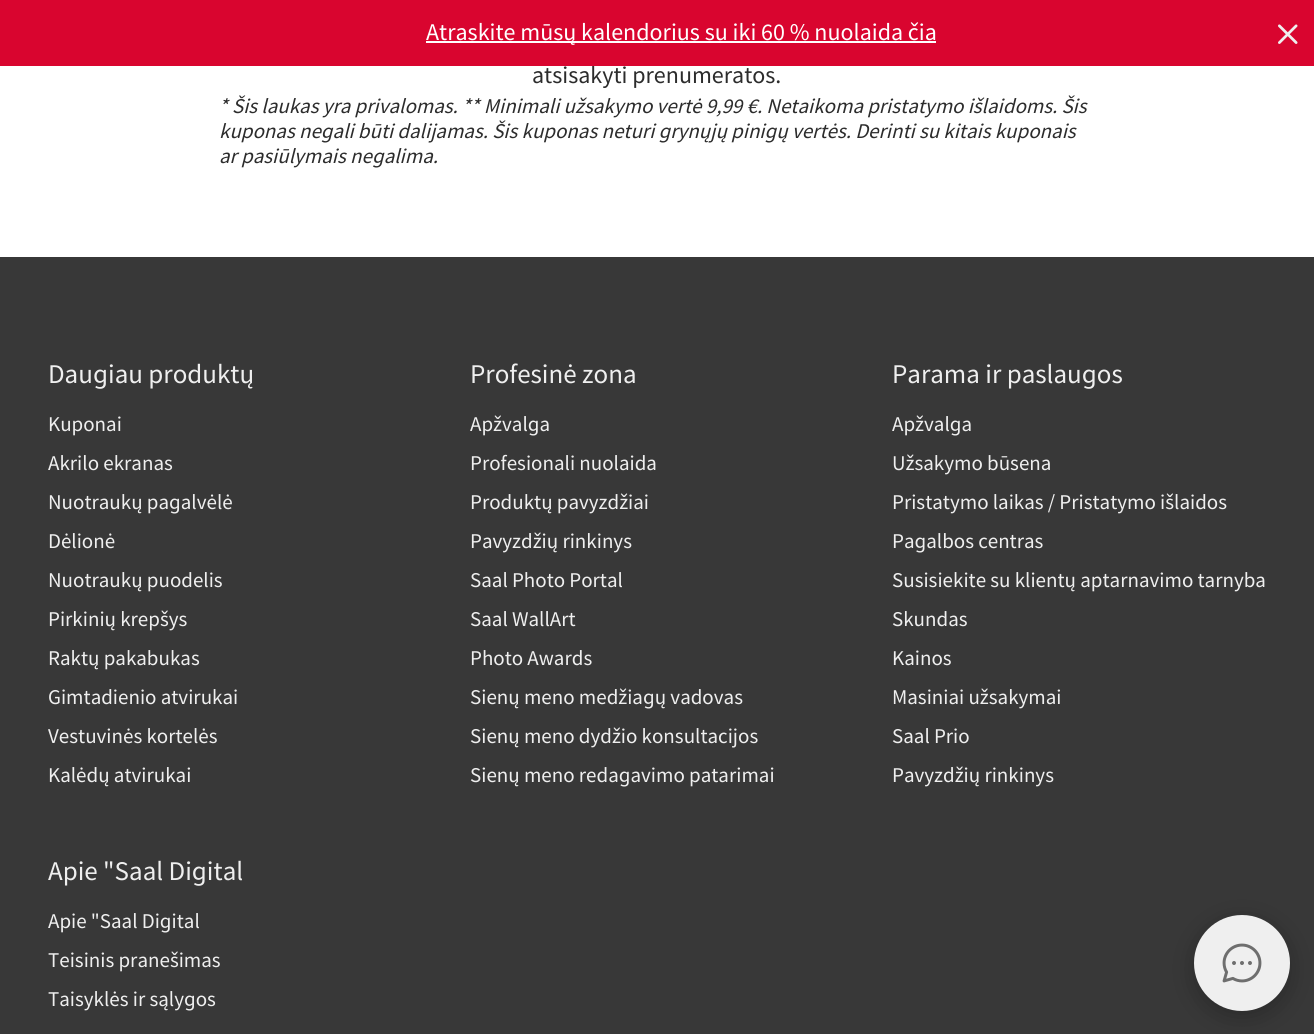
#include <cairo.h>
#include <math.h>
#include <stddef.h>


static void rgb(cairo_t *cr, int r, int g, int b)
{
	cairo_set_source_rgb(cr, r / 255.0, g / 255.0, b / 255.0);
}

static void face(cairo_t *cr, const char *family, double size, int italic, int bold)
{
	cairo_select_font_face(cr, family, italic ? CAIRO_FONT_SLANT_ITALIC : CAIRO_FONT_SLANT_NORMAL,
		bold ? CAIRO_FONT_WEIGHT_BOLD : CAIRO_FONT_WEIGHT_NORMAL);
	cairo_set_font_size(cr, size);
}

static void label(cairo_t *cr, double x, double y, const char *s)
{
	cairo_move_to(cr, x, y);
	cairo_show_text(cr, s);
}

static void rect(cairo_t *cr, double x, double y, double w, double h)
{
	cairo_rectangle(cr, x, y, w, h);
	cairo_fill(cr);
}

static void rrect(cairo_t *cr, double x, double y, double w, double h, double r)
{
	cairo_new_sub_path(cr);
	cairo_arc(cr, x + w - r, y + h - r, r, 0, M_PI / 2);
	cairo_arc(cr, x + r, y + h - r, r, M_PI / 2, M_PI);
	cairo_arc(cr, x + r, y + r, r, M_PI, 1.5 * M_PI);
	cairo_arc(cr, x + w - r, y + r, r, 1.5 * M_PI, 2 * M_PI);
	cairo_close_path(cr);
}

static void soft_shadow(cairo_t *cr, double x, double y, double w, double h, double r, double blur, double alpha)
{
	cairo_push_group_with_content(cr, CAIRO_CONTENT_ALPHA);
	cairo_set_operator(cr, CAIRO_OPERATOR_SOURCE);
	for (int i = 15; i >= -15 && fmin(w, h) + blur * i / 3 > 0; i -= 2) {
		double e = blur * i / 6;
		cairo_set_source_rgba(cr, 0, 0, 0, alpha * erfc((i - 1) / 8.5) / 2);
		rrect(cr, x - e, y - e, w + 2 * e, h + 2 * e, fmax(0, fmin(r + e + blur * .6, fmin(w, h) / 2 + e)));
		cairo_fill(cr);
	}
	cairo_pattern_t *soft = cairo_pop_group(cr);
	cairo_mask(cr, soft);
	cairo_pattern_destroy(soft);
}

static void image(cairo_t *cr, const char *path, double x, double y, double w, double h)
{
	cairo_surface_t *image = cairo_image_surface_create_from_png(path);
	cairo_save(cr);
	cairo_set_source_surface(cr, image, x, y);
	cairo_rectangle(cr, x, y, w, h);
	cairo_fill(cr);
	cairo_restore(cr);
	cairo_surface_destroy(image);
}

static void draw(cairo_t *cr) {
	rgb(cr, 255, 255, 255);
	cairo_paint(cr);
	face(cr, "Source Sans Pro", 24, 0, 0);
	rgb(cr, 44, 44, 44);
	label(cr, 532, 83, "atsisakyti prenumeratos.");
	rgb(cr, 217, 5, 47);
	rect(cr, 0, 0, 1314, 66);
	rgb(cr, 255, 255, 255);
	rect(cr, 426, 41, 510, 2);
	label(cr, 426, 40, "Atraskite mūsų kalendorius su iki 60 % nuolaida čia");
	image(cr, "image0.png", 1278, 24, 20, 20);
	face(cr, "Source Sans Pro", 21, 1, 0);
	rgb(cr, 44, 44, 44);
	label(cr, 219, 113, "* Šis laukas yra privalomas. ** Minimali užsakymo vertė 9,99 €. Netaikoma pristatymo išlaidoms. Šis");
	label(cr, 219, 138, "kuponas negali būti dalijamas. Šis kuponas neturi grynųjų pinigų vertės. Derinti su kitais kuponais");
	label(cr, 219, 163, "ar pasiūlymais negalima.");
	rgb(cr, 56, 56, 56);
	rect(cr, 0, 257, 1314, 777);
	face(cr, "Source Sans Pro", 27, 0, 0);
	rgb(cr, 239, 239, 239);
	label(cr, 48, 383, "Daugiau produktų");
	face(cr, "Source Sans Pro", 21, 0, 0);
	label(cr, 48, 431, "Kuponai");
	label(cr, 48, 470, "Akrilo ekranas");
	label(cr, 48, 509, "Nuotraukų pagalvėlė");
	label(cr, 48, 548, "Dėlionė");
	label(cr, 48, 587, "Nuotraukų puodelis");
	label(cr, 48, 626, "Pirkinių krepšys");
	label(cr, 48, 665, "Raktų pakabukas");
	label(cr, 48, 704, "Gimtadienio atvirukai");
	label(cr, 48, 743, "Vestuvinės kortelės");
	label(cr, 48, 782, "Kalėdų atvirukai");
	face(cr, "Source Sans Pro", 27, 0, 0);
	label(cr, 470, 383, "Profesinė zona");
	face(cr, "Source Sans Pro", 21, 0, 0);
	label(cr, 470, 431, "Apžvalga");
	label(cr, 470, 470, "Profesionali nuolaida");
	label(cr, 470, 509, "Produktų pavyzdžiai");
	label(cr, 470, 548, "Pavyzdžių rinkinys");
	label(cr, 470, 587, "Saal Photo Portal");
	label(cr, 470, 626, "Saal WallArt");
	label(cr, 470, 665, "Photo Awards");
	label(cr, 470, 704, "Sienų meno medžiagų vadovas");
	label(cr, 470, 743, "Sienų meno dydžio konsultacijos");
	label(cr, 470, 782, "Sienų meno redagavimo patarimai");
	face(cr, "Source Sans Pro", 27, 0, 0);
	label(cr, 892, 383, "Parama ir paslaugos");
	face(cr, "Source Sans Pro", 21, 0, 0);
	label(cr, 892, 431, "Apžvalga");
	label(cr, 892, 470, "Užsakymo būsena");
	label(cr, 892, 509, "Pristatymo laikas / Pristatymo išlaidos");
	label(cr, 892, 548, "Pagalbos centras");
	label(cr, 892, 587, "Susisiekite su klientų aptarnavimo tarnyba");
	label(cr, 892, 626, "Skundas");
	label(cr, 892, 665, "Kainos");
	label(cr, 892, 704, "Masiniai užsakymai");
	label(cr, 892, 743, "Saal Prio");
	label(cr, 892, 782, "Pavyzdžių rinkinys");
	face(cr, "Source Sans Pro", 27, 0, 0);
	label(cr, 48, 880, "Apie \"Saal Digital");
	face(cr, "Source Sans Pro", 21, 0, 0);
	label(cr, 48, 928, "Apie \"Saal Digital");
	label(cr, 48, 967, "Teisinis pranešimas");
	label(cr, 48, 1006, "Taisyklės ir sąlygos");
	rgb(cr, 0, 0, 0);
	soft_shadow(cr, 1194, 921, 96, 96, 48, 12, 0.25);
	rgb(cr, 239, 239, 239);
	cairo_arc(cr, 1242, 963, 48, 0, 2 * M_PI);
	cairo_fill(cr);
	image(cr, "image1.png", 1222, 943, 40, 40);
}

int main(void) {
	cairo_surface_t *surface = cairo_image_surface_create(CAIRO_FORMAT_RGB24, 1314, 1034);
	cairo_t *cr = cairo_create(surface);
	cairo_font_options_t *options = cairo_font_options_create();
	cairo_font_options_set_hint_metrics(options, CAIRO_HINT_METRICS_OFF);
	cairo_font_options_set_hint_style(options, CAIRO_HINT_STYLE_NONE);
	cairo_set_font_options(cr, options);
	cairo_set_miter_limit(cr, 4);
	draw(cr);
	cairo_surface_write_to_png(surface, "render.png");
	cairo_font_options_destroy(options);
	cairo_destroy(cr);
	cairo_surface_destroy(surface);
	return 0;
}
